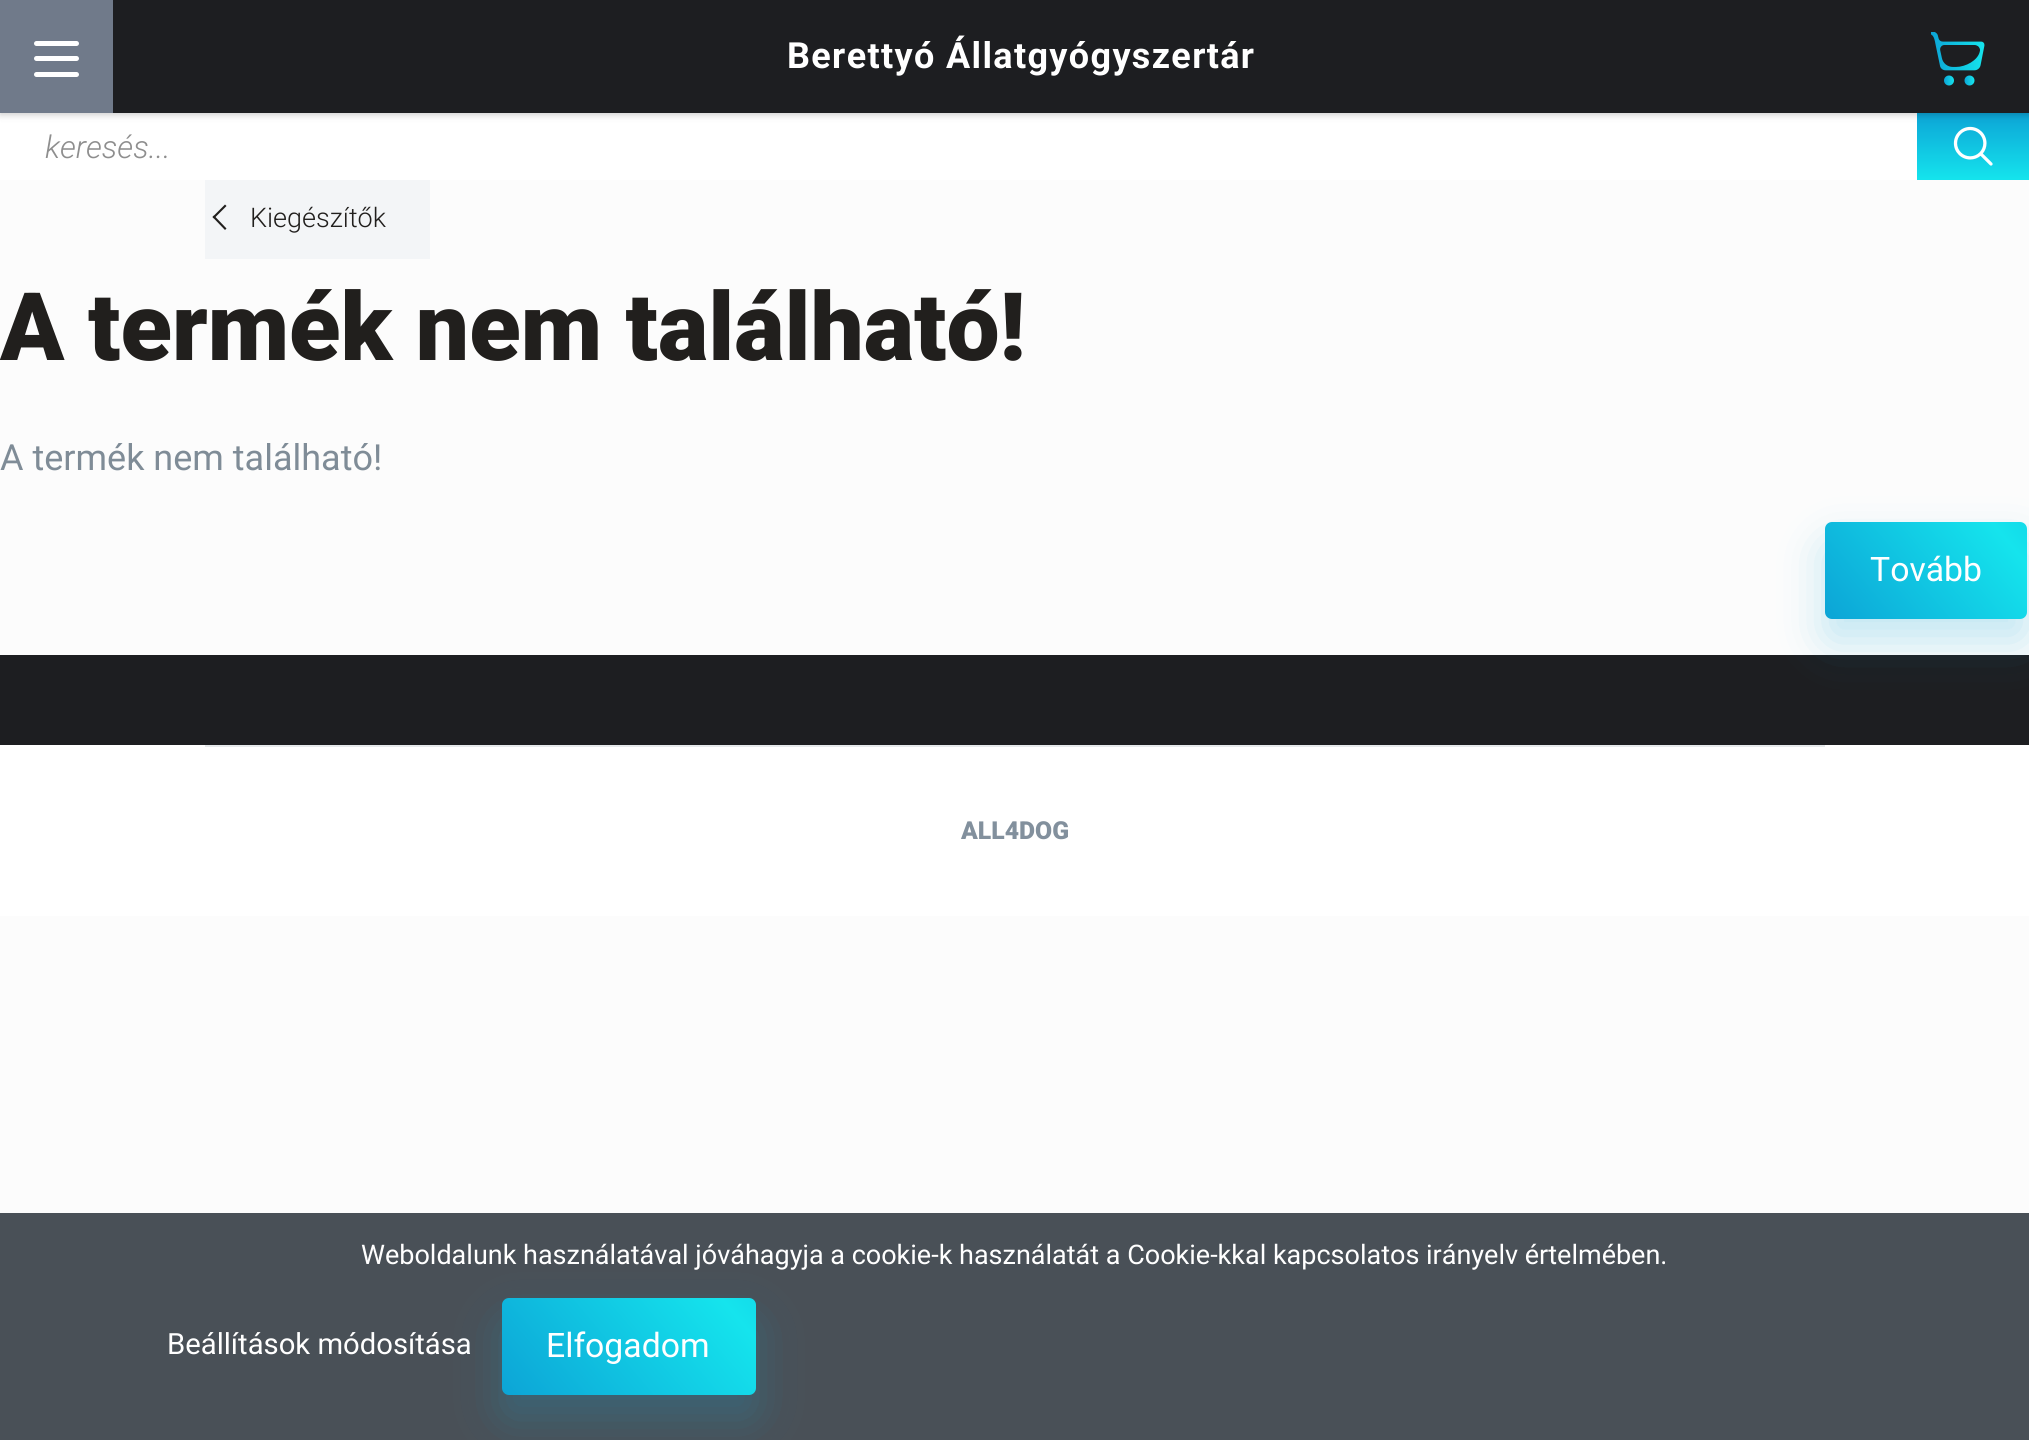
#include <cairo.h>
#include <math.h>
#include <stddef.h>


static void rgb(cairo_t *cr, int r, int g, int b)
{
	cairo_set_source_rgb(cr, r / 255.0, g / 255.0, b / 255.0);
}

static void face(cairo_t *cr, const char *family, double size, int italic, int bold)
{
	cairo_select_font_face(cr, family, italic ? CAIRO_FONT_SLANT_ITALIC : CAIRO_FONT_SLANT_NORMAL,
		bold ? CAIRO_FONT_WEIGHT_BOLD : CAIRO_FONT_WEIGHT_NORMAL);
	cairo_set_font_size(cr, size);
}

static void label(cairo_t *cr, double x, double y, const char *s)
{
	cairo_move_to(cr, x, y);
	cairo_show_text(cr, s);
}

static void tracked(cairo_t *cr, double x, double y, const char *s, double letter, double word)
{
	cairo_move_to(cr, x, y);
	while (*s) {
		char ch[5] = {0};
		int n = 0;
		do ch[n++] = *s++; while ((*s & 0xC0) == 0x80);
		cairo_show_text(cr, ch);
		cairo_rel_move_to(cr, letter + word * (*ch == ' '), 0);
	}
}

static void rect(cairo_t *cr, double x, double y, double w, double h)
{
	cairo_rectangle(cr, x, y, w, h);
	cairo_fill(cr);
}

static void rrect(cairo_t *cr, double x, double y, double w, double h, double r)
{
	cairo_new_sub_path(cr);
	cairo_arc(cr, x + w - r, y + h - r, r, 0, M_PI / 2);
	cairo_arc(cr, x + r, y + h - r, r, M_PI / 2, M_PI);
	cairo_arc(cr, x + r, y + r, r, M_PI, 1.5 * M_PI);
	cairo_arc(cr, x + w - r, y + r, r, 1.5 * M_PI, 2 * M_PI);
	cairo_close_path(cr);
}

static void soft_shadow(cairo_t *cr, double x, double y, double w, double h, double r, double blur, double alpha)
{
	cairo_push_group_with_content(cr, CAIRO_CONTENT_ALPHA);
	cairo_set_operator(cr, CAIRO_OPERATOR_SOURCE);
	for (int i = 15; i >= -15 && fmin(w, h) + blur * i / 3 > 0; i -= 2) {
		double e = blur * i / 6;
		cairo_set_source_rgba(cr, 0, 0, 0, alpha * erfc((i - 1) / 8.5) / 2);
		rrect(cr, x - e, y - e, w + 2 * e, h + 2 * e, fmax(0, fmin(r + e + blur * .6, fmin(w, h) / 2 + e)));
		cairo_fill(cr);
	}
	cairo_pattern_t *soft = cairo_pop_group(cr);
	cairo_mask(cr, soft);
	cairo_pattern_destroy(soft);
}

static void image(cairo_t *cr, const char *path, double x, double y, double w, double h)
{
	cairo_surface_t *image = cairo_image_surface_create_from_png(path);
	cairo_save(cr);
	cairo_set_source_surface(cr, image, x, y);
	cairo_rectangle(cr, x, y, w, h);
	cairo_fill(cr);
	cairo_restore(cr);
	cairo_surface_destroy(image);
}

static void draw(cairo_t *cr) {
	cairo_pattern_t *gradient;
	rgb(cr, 252, 252, 252);
	cairo_paint(cr);
	rgb(cr, 255, 255, 255);
	rect(cr, 0, 113, 1917, 67);
	gradient = cairo_pattern_create_linear(1973, 113, 1973, 180);
	cairo_pattern_add_color_stop_rgba(gradient, 0, 0.047, 0.643, 0.839, 1);
	cairo_pattern_add_color_stop_rgba(gradient, 1, 0.082, 0.894, 0.929, 1);
	cairo_set_source(cr, gradient);
	cairo_pattern_destroy(gradient);
	rect(cr, 1917, 113, 112, 67);
	image(cr, "image1.png", 1953, 126, 40, 40);
	rgb(cr, 0, 0, 0);
	soft_shadow(cr, 0, 2, 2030, 113, 0, 3.5, 0.2);
	rgb(cr, 29, 30, 33);
	rect(cr, 113, 0, 1916, 113);
	rgb(cr, 112, 122, 138);
	rect(cr, 0, 0, 113, 113);
	rgb(cr, 255, 255, 255);
	rrect(cr, 34, 41, 45, 5, 2.5);
	cairo_fill(cr);
	rrect(cr, 34, 56, 45, 5, 2.5);
	cairo_fill(cr);
	rrect(cr, 34, 72, 45, 5, 2.5);
	cairo_fill(cr);
	face(cr, "Roboto", 36, 0, 1);
	tracked(cr, 787, 68, "Berettyó Állatgyógyszertár", 1.35, 0);
	image(cr, "image0.png", 1931, 32, 54, 54);
	face(cr, "Roboto Light", 31.5, 1, 0);
	rgb(cr, 142, 142, 142);
	label(cr, 45, 158, "keresés...");
	rgb(cr, 243, 245, 247);
	rect(cr, 205, 180, 225, 79);
	rgb(cr, 33, 31, 29);
	cairo_new_path(cr);
	cairo_move_to(cr, 226.5, 228.5);
	cairo_line_to(cr, 225, 230);
	cairo_line_to(cr, 212.5, 217);
	cairo_line_to(cr, 214, 215.5);
	cairo_close_path(cr);
	cairo_fill(cr);
	cairo_new_path(cr);
	cairo_move_to(cr, 226.5, 206);
	cairo_line_to(cr, 214, 218.5);
	cairo_line_to(cr, 212.5, 217);
	cairo_line_to(cr, 225, 204.5);
	cairo_close_path(cr);
	cairo_fill(cr);
	face(cr, "Roboto Light", 27, 0, 0);
	label(cr, 250, 227, "Kiegészítők");
	face(cr, "Roboto Black", 94.5, 0, 0);
	label(cr, 0, 360, "A termék nem található!");
	face(cr, "Roboto", 36, 0, 0);
	rgb(cr, 127, 140, 151);
	label(cr, 0, 470, "A termék nem található!");
	rgb(cr, 29, 30, 33);
	rect(cr, 0, 655, 2029, 90);
	rgb(cr, 12, 164, 214);
	soft_shadow(cr, 1825, 545, 202, 96, 7, 22.5, 0.25);
	gradient = cairo_pattern_create_linear(1885, 690, 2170, 451);
	cairo_pattern_add_color_stop_rgba(gradient, 0, 0.047, 0.643, 0.839, 1);
	cairo_pattern_add_color_stop_rgba(gradient, 0.51, 0.082, 0.894, 0.929, 1);
	cairo_pattern_add_color_stop_rgba(gradient, 1, 0.047, 0.643, 0.839, 1);
	cairo_set_source(cr, gradient);
	cairo_pattern_destroy(gradient);
	rrect(cr, 1825, 522, 202, 97, 7);
	cairo_fill(cr);
	face(cr, "Roboto", 33.75, 0, 0);
	rgb(cr, 255, 255, 255);
	label(cr, 1870, 581, "Tovább");
	rect(cr, 0, 745, 2029, 171);
	rgb(cr, 230, 233, 235);
	rect(cr, 205, 745, 1620, 2);
	face(cr, "Roboto Black", 24.75, 0, 0);
	rgb(cr, 130, 144, 157);
	label(cr, 961, 839, "ALL4DOG");
	rgb(cr, 73, 80, 87);
	rect(cr, 0, 1213, 2029, 227);
	face(cr, "Roboto", 27, 0, 0);
	rgb(cr, 255, 255, 255);
	label(cr, 361, 1264, "Weboldalunk használatával jóváhagyja a cookie-k használatát a Cookie-kkal kapcsolatos irányelv értelmében.");
	face(cr, "Roboto", 29.25, 0, 0);
	label(cr, 167, 1354, "Beállítások módosítása");
	rgb(cr, 12, 164, 214);
	soft_shadow(cr, 502, 1321, 254, 97, 7, 22.5, 0.25);
	gradient = cairo_pattern_create_linear(583, 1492, 929, 1201);
	cairo_pattern_add_color_stop_rgba(gradient, 0, 0.047, 0.643, 0.839, 1);
	cairo_pattern_add_color_stop_rgba(gradient, 0.51, 0.082, 0.894, 0.929, 1);
	cairo_pattern_add_color_stop_rgba(gradient, 1, 0.047, 0.643, 0.839, 1);
	cairo_set_source(cr, gradient);
	cairo_pattern_destroy(gradient);
	rrect(cr, 502, 1298, 254, 97, 7);
	cairo_fill(cr);
	face(cr, "Roboto", 33.75, 0, 0);
	rgb(cr, 255, 255, 255);
	label(cr, 546, 1357, "Elfogadom");
}

int main(void) {
	cairo_surface_t *surface = cairo_image_surface_create(CAIRO_FORMAT_RGB24, 2029, 1440);
	cairo_t *cr = cairo_create(surface);
	cairo_font_options_t *options = cairo_font_options_create();
	cairo_font_options_set_hint_metrics(options, CAIRO_HINT_METRICS_OFF);
	cairo_font_options_set_hint_style(options, CAIRO_HINT_STYLE_NONE);
	cairo_set_font_options(cr, options);
	cairo_set_miter_limit(cr, 4);
	draw(cr);
	cairo_surface_write_to_png(surface, "render.png");
	cairo_font_options_destroy(options);
	cairo_destroy(cr);
	cairo_surface_destroy(surface);
	return 0;
}
